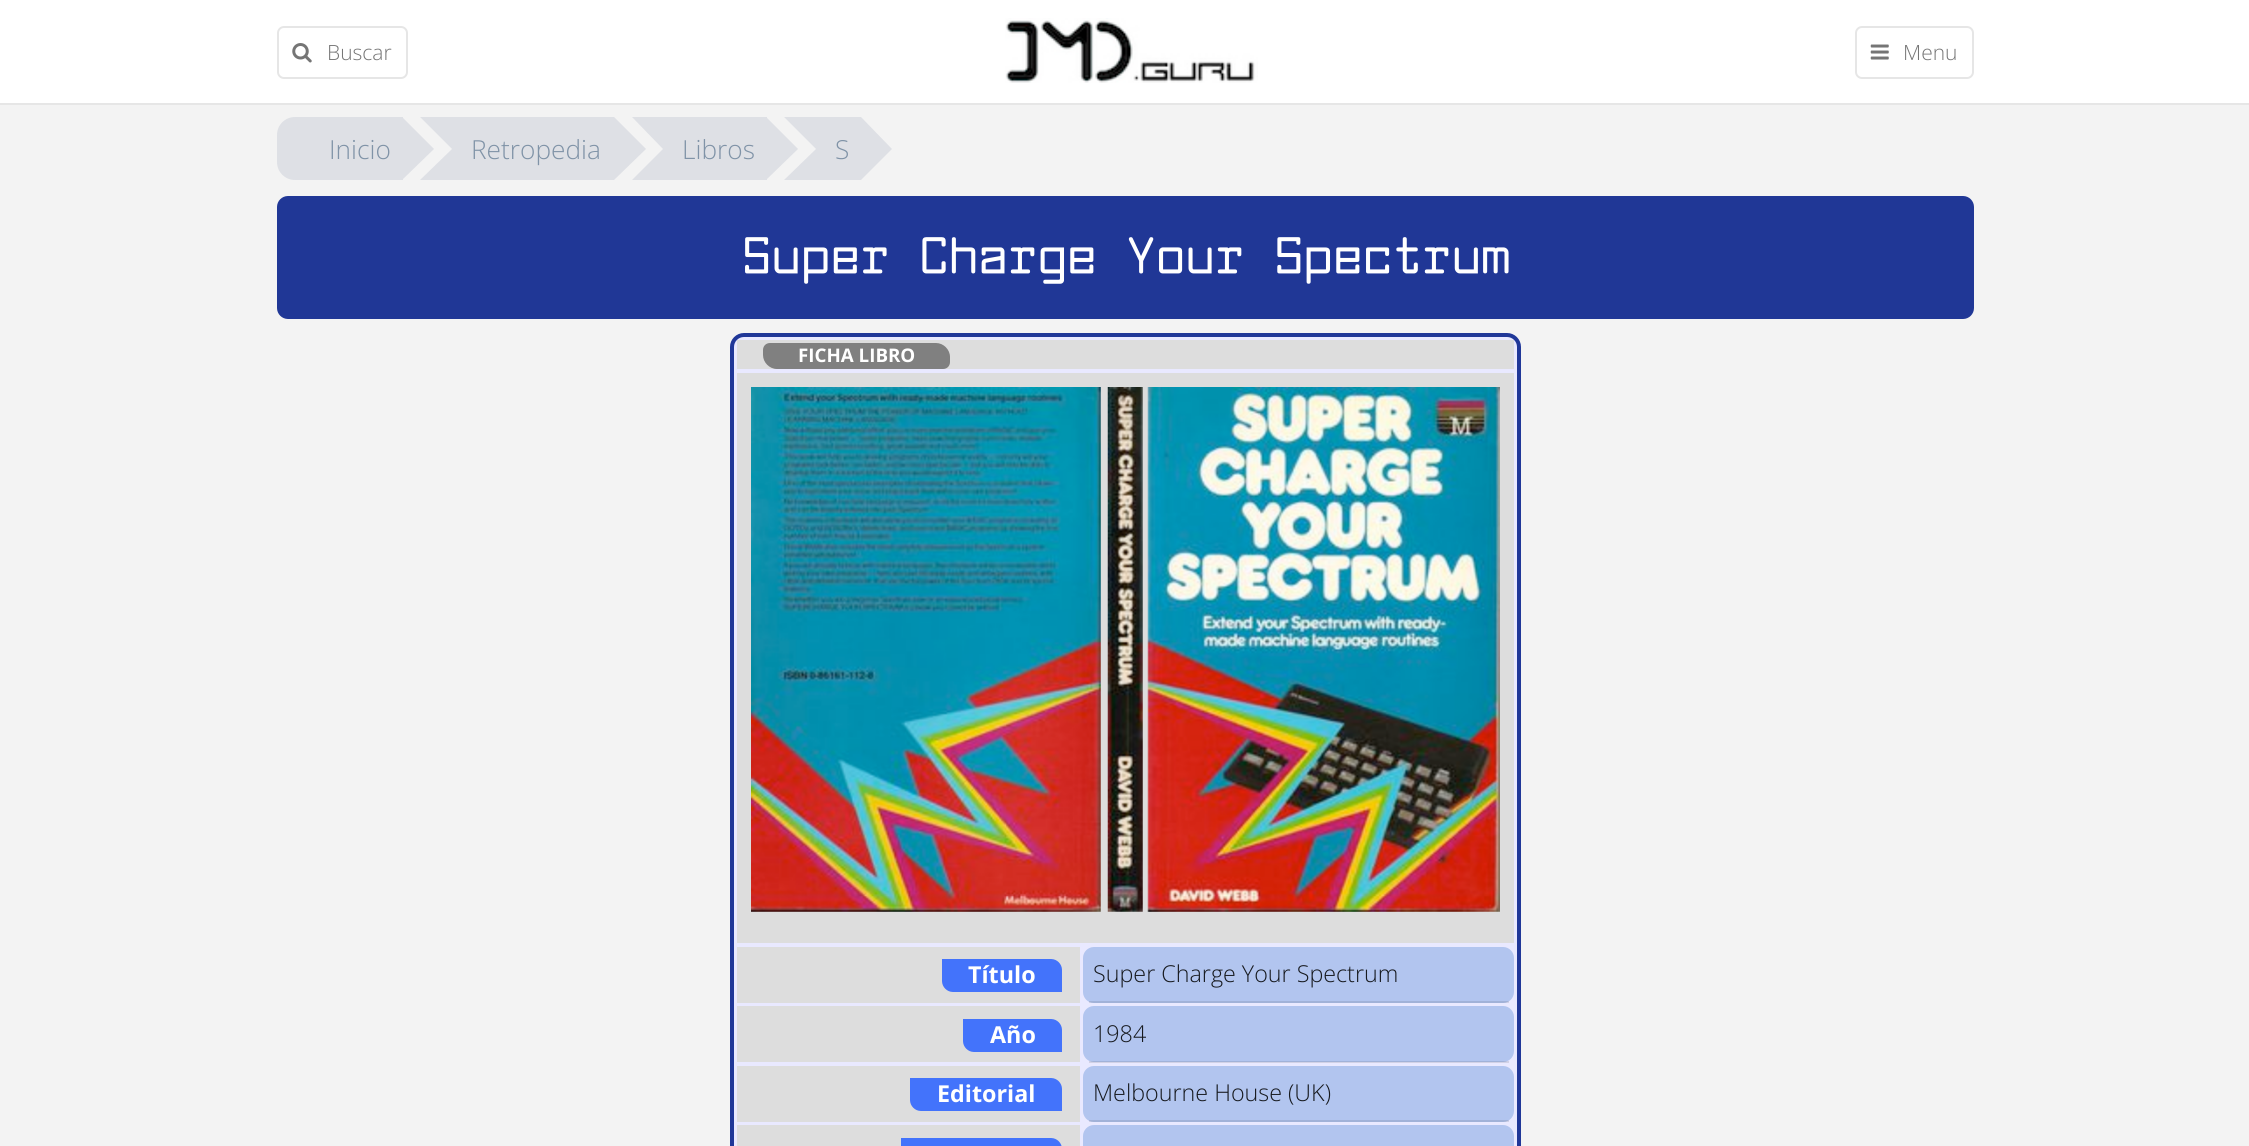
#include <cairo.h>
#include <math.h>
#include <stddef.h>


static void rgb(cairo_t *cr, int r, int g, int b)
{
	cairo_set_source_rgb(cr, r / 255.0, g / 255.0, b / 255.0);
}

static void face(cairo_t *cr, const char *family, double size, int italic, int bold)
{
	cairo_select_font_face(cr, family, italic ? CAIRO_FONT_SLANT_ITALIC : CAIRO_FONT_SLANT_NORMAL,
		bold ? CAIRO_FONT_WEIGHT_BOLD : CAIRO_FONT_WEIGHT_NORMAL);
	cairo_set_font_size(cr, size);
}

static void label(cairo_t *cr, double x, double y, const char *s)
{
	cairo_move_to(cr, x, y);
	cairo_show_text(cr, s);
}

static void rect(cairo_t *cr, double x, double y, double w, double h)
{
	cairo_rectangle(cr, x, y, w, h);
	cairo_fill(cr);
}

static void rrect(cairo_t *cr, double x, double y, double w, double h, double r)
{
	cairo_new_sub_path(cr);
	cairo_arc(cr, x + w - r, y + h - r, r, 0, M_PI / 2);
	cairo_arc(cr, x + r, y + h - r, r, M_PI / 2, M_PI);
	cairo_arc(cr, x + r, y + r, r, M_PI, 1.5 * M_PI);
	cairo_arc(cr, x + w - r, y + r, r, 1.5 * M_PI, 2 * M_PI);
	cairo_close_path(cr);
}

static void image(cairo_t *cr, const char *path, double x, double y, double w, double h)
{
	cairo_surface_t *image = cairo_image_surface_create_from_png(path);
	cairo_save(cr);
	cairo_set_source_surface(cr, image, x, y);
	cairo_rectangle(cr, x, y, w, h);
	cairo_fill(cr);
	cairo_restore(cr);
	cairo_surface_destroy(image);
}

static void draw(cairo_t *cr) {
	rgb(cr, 243, 243, 243);
	cairo_paint(cr);
	rgb(cr, 255, 255, 255);
	rect(cr, 0, 0, 2249, 103);
	rgb(cr, 230, 230, 230);
	rect(cr, 0, 103, 2249, 2);
	rrect(cr, 278, 27, 129, 51, 6);
	cairo_stroke(cr);
	image(cr, "image0.png", 292, 43, 20, 20);
	face(cr, "Open Sans Light", 21, 0, 0);
	rgb(cr, 117, 117, 117);
	label(cr, 327, 60, "Buscar");
	image(cr, "image1.png", 1005, 18, 253, 65);
	rrect(cr, 1856, 27, 117, 51, 6);
	rgb(cr, 230, 230, 230);
	cairo_stroke(cr);
	image(cr, "image2.png", 1870, 44, 19, 16);
	rgb(cr, 117, 117, 117);
	label(cr, 1903, 60, "Menu");
	rgb(cr, 222, 224, 229);
	cairo_new_path(cr);
	cairo_move_to(cr, 295, 117);
	cairo_line_to(cr, 403, 117);
	cairo_line_to(cr, 403, 180);
	cairo_line_to(cr, 295, 180);
	cairo_curve_to(cr, 285, 180, 277, 172, 277, 162);
	cairo_line_to(cr, 277, 135);
	cairo_curve_to(cr, 277, 125, 285, 117, 295, 117);
	cairo_close_path(cr);
	cairo_fill(cr);
	face(cr, "Open Sans Light", 26.25, 0, 0);
	rgb(cr, 128, 147, 167);
	label(cr, 329, 159, "Inicio");
	rgb(cr, 222, 224, 229);
	rect(cr, 420, 117, 194, 63);
	rgb(cr, 243, 243, 243);
	cairo_new_path(cr);
	cairo_move_to(cr, 420, 180);
	cairo_line_to(cr, 420, 117);
	cairo_line_to(cr, 452, 149);
	cairo_close_path(cr);
	cairo_fill(cr);
	rgb(cr, 222, 224, 229);
	cairo_new_path(cr);
	cairo_move_to(cr, 402, 180);
	cairo_line_to(cr, 402, 117);
	cairo_line_to(cr, 434, 149);
	cairo_close_path(cr);
	cairo_fill(cr);
	rgb(cr, 128, 147, 167);
	label(cr, 471, 159, "Retropedia");
	rgb(cr, 222, 224, 229);
	rect(cr, 632, 117, 135, 63);
	rgb(cr, 243, 243, 243);
	cairo_new_path(cr);
	cairo_move_to(cr, 632, 180);
	cairo_line_to(cr, 632, 117);
	cairo_line_to(cr, 663, 149);
	cairo_close_path(cr);
	cairo_fill(cr);
	rgb(cr, 222, 224, 229);
	cairo_new_path(cr);
	cairo_move_to(cr, 614, 180);
	cairo_line_to(cr, 614, 117);
	cairo_line_to(cr, 646, 149);
	cairo_close_path(cr);
	cairo_fill(cr);
	rgb(cr, 128, 147, 167);
	label(cr, 682, 159, "Libros");
	rgb(cr, 222, 224, 229);
	rect(cr, 784, 117, 77, 63);
	rgb(cr, 243, 243, 243);
	cairo_new_path(cr);
	cairo_move_to(cr, 784, 180);
	cairo_line_to(cr, 784, 117);
	cairo_line_to(cr, 816, 149);
	cairo_close_path(cr);
	cairo_fill(cr);
	rgb(cr, 222, 224, 229);
	cairo_new_path(cr);
	cairo_move_to(cr, 766, 180);
	cairo_line_to(cr, 766, 117);
	cairo_line_to(cr, 798, 149);
	cairo_close_path(cr);
	cairo_fill(cr);
	rgb(cr, 128, 147, 167);
	label(cr, 835, 159, "S");
	rgb(cr, 222, 224, 229);
	cairo_new_path(cr);
	cairo_move_to(cr, 861, 180);
	cairo_line_to(cr, 861, 117);
	cairo_line_to(cr, 892, 149);
	cairo_close_path(cr);
	cairo_fill(cr);
	rgb(cr, 32, 55, 150);
	rrect(cr, 279, 198, 1693, 119, 9);
	cairo_fill_preserve(cr);
	cairo_set_line_width(cr, 4);
	cairo_stroke(cr);
	face(cr, "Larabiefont", 56, 0, 1);
	rgb(cr, 255, 255, 255);
	label(cr, 741, 274, "Super Charge Your Spectrum");
	rgb(cr, 233, 233, 255);
	cairo_new_path(cr);
	cairo_move_to(cr, 744, 333);
	cairo_line_to(cr, 1507, 333);
	cairo_curve_to(cr, 1514.5, 333, 1521, 339.5, 1521, 347);
	cairo_line_to(cr, 1521, 1146);
	cairo_line_to(cr, 730, 1146);
	cairo_line_to(cr, 730, 347);
	cairo_curve_to(cr, 730, 339.5, 736.5, 333, 744, 333);
	cairo_close_path(cr);
	cairo_fill(cr);
	rrect(cr, 732, 335, 787, 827, 12);
	rgb(cr, 32, 55, 152);
	cairo_stroke(cr);
	rgb(cr, 221, 221, 221);
	rect(cr, 737, 340, 777, 29);
	rgb(cr, 128, 128, 128);
	cairo_new_path(cr);
	cairo_move_to(cr, 770, 343);
	cairo_line_to(cr, 936, 343);
	cairo_curve_to(cr, 943.5, 343, 950, 349.5, 950, 357);
	cairo_line_to(cr, 950, 362);
	cairo_curve_to(cr, 950, 366, 947, 369, 943, 369);
	cairo_line_to(cr, 777, 369);
	cairo_curve_to(cr, 769.5, 369, 763, 362.5, 763, 355);
	cairo_line_to(cr, 763, 350);
	cairo_curve_to(cr, 763, 346, 766, 343, 770, 343);
	cairo_close_path(cr);
	cairo_fill(cr);
	face(cr, "Open Sans", 18.75, 0, 1);
	rgb(cr, 255, 255, 255);
	label(cr, 798, 362, "FICHA LIBRO");
	rgb(cr, 221, 221, 221);
	rect(cr, 737, 373, 777, 570);
	image(cr, "image3.png", 751, 387, 350, 525);
	image(cr, "image4.png", 1107, 387, 36, 525);
	image(cr, "image5.png", 1147, 387, 353, 525);
	rect(cr, 737, 947, 343, 56);
	rgb(cr, 67, 115, 251);
	cairo_new_path(cr);
	cairo_move_to(cr, 942, 959);
	cairo_line_to(cr, 1051, 959);
	cairo_curve_to(cr, 1057, 959, 1062, 964, 1062, 970);
	cairo_line_to(cr, 1062, 992);
	cairo_line_to(cr, 953, 992);
	cairo_curve_to(cr, 947, 992, 942, 987, 942, 981);
	cairo_close_path(cr);
	cairo_fill(cr);
	face(cr, "Open Sans", 23.3, 0, 1);
	rgb(cr, 255, 255, 255);
	label(cr, 968, 983, "Título");
	rgb(cr, 178, 197, 239);
	rrect(cr, 1083, 947, 431, 56, 11);
	cairo_fill(cr);
	cairo_set_source_rgba(cr, 0, 0, 0, 0.1);
	rect(cr, 1089, 1001, 420, 2);
	face(cr, "Open Sans Light", 23.3, 0, 0);
	rgb(cr, 23, 26, 31);
	label(cr, 1093, 982, "Super Charge Your Spectrum");
	rgb(cr, 221, 221, 221);
	rect(cr, 737, 1006, 343, 56);
	rgb(cr, 67, 115, 251);
	cairo_new_path(cr);
	cairo_move_to(cr, 963, 1019);
	cairo_line_to(cr, 1051, 1019);
	cairo_curve_to(cr, 1057, 1019, 1062, 1024, 1062, 1030);
	cairo_line_to(cr, 1062, 1052);
	cairo_line_to(cr, 974, 1052);
	cairo_curve_to(cr, 968, 1052, 963, 1047, 963, 1041);
	cairo_close_path(cr);
	cairo_fill(cr);
	face(cr, "Open Sans", 23.3, 0, 1);
	rgb(cr, 255, 255, 255);
	label(cr, 990, 1043, "Año");
	rgb(cr, 178, 197, 239);
	rrect(cr, 1083, 1006, 431, 56, 11);
	cairo_fill(cr);
	cairo_set_source_rgba(cr, 0, 0, 0, 0.1);
	rect(cr, 1089, 1061, 420, 2);
	face(cr, "Open Sans Light", 23.3, 0, 0);
	rgb(cr, 23, 26, 31);
	label(cr, 1093, 1042, "1984");
	rgb(cr, 221, 221, 221);
	rect(cr, 737, 1066, 343, 56);
	rgb(cr, 67, 115, 251);
	cairo_new_path(cr);
	cairo_move_to(cr, 910, 1078);
	cairo_line_to(cr, 1051, 1078);
	cairo_curve_to(cr, 1057, 1078, 1062, 1083, 1062, 1089);
	cairo_line_to(cr, 1062, 1111);
	cairo_line_to(cr, 921, 1111);
	cairo_curve_to(cr, 915, 1111, 910, 1106, 910, 1100);
	cairo_close_path(cr);
	cairo_fill(cr);
	face(cr, "Open Sans", 23.3, 0, 1);
	rgb(cr, 255, 255, 255);
	label(cr, 937, 1102, "Editorial");
	rgb(cr, 178, 197, 239);
	rrect(cr, 1083, 1066, 431, 56, 11);
	cairo_fill(cr);
	cairo_set_source_rgba(cr, 0, 0, 0, 0.1);
	rect(cr, 1089, 1120, 420, 2);
	face(cr, "Open Sans Light", 23.3, 0, 0);
	rgb(cr, 23, 26, 31);
	label(cr, 1093, 1101, "Melbourne House (UK)");
	rgb(cr, 221, 221, 221);
	rect(cr, 737, 1125, 343, 21);
	rgb(cr, 67, 115, 251);
	cairo_new_path(cr);
	cairo_move_to(cr, 901, 1138);
	cairo_line_to(cr, 1051, 1138);
	cairo_curve_to(cr, 1057, 1138, 1062, 1143, 1062, 1149);
	cairo_line_to(cr, 1062, 1146);
	cairo_line_to(cr, 901, 1146);
	cairo_close_path(cr);
	cairo_fill(cr);
	rgb(cr, 178, 197, 239);
	cairo_new_path(cr);
	cairo_move_to(cr, 1094, 1125);
	cairo_line_to(cr, 1503, 1125);
	cairo_curve_to(cr, 1509, 1125, 1514, 1130, 1514, 1136);
	cairo_line_to(cr, 1514, 1146);
	cairo_line_to(cr, 1083, 1146);
	cairo_line_to(cr, 1083, 1136);
	cairo_curve_to(cr, 1083, 1130, 1088, 1125, 1094, 1125);
	cairo_close_path(cr);
	cairo_fill(cr);
}

int main(void) {
	cairo_surface_t *surface = cairo_image_surface_create(CAIRO_FORMAT_RGB24, 2249, 1146);
	cairo_t *cr = cairo_create(surface);
	cairo_font_options_t *options = cairo_font_options_create();
	cairo_font_options_set_hint_metrics(options, CAIRO_HINT_METRICS_OFF);
	cairo_font_options_set_hint_style(options, CAIRO_HINT_STYLE_NONE);
	cairo_set_font_options(cr, options);
	cairo_set_miter_limit(cr, 4);
	draw(cr);
	cairo_surface_write_to_png(surface, "render.png");
	cairo_font_options_destroy(options);
	cairo_destroy(cr);
	cairo_surface_destroy(surface);
	return 0;
}
